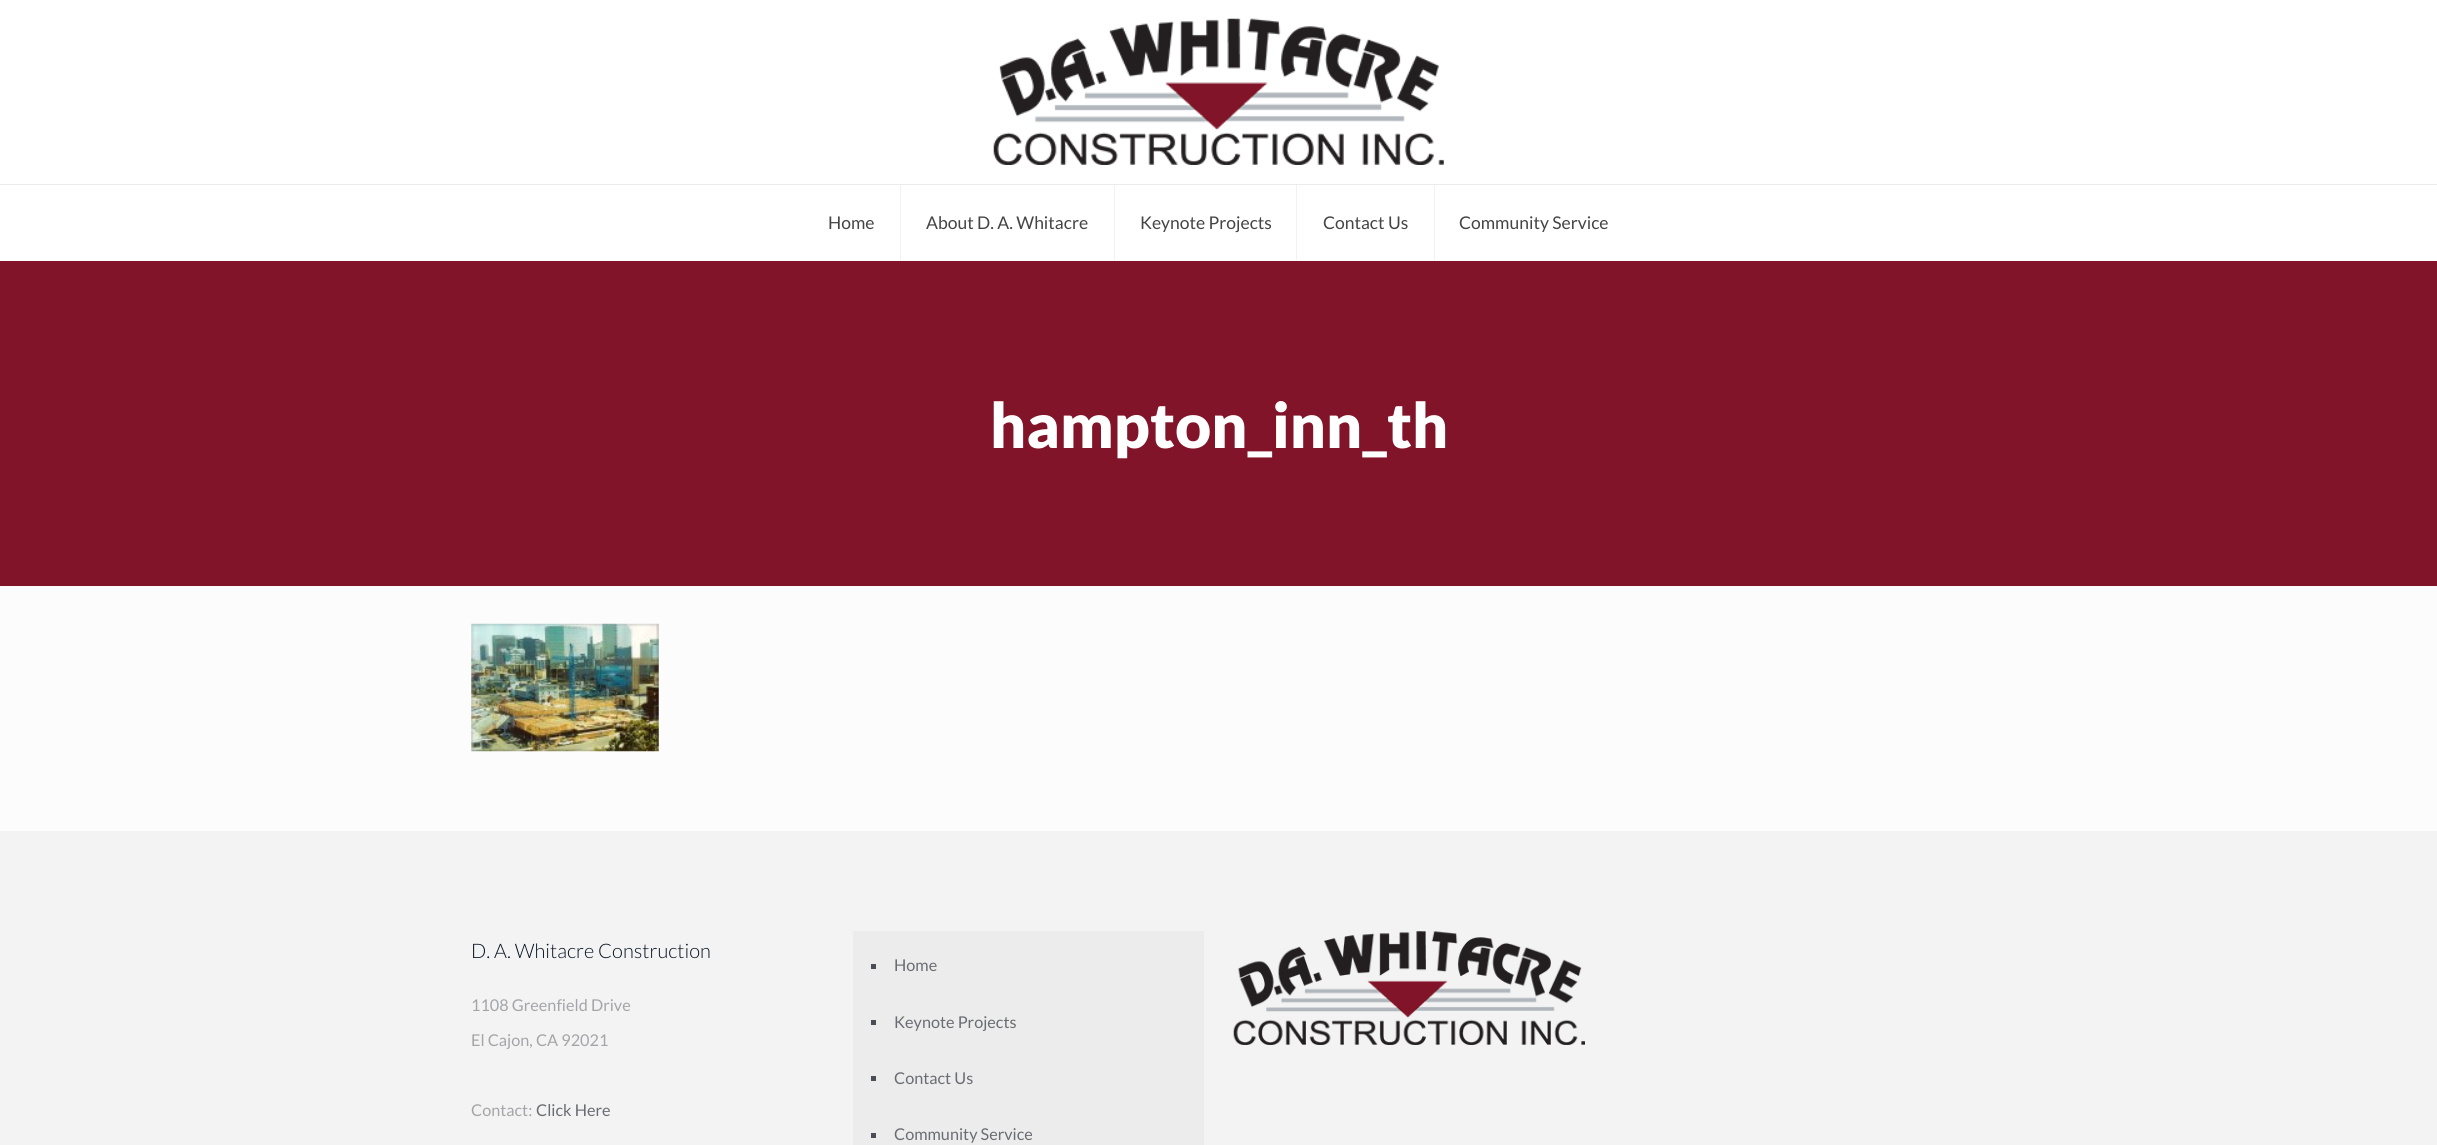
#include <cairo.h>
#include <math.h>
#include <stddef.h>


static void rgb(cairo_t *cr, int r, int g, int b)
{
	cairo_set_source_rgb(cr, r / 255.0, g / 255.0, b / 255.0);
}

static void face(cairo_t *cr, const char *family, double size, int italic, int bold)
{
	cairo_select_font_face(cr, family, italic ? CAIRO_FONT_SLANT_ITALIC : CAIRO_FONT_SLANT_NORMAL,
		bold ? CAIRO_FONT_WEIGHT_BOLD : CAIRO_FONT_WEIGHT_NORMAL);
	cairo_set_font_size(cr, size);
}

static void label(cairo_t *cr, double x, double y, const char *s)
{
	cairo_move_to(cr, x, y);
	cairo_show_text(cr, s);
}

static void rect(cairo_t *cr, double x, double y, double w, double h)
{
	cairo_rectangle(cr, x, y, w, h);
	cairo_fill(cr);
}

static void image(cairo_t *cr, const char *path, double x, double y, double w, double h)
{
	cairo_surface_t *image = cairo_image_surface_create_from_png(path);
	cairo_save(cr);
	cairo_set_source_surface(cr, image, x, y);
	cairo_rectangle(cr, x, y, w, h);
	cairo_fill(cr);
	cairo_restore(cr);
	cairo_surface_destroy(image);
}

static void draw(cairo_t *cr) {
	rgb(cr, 252, 252, 252);
	cairo_paint(cr);
	rgb(cr, 255, 255, 255);
	rect(cr, 0, 0, 2437, 261);
	rgb(cr, 235, 235, 235);
	rect(cr, 0, 184, 2437, 1);
	image(cr, "image0.png", 993, 18, 451, 147);
	rgb(cr, 242, 242, 242);
	rect(cr, 900, 185, 1, 75);
	face(cr, "Lato", 17.5, 0, 0);
	rgb(cr, 68, 68, 68);
	label(cr, 828, 229, "Home");
	rgb(cr, 242, 242, 242);
	rect(cr, 1114, 185, 1, 75);
	rgb(cr, 68, 68, 68);
	label(cr, 926, 229, "About D. A. Whitacre");
	rgb(cr, 242, 242, 242);
	rect(cr, 1296, 185, 1, 75);
	rgb(cr, 68, 68, 68);
	label(cr, 1140, 229, "Keynote Projects");
	rgb(cr, 242, 242, 242);
	rect(cr, 1434, 185, 1, 75);
	rgb(cr, 68, 68, 68);
	label(cr, 1323, 229, "Contact Us");
	label(cr, 1459, 229, "Community Service");
	rgb(cr, 129, 20, 40);
	rect(cr, 0, 261, 2437, 325);
	face(cr, "Lato Black", 62.5, 0, 0);
	rgb(cr, 255, 255, 255);
	label(cr, 990, 448, "hampton_inn_th");
	image(cr, "image1.png", 471, 623, 188, 129);
	rgb(cr, 243, 243, 243);
	rect(cr, 0, 831, 2437, 314);
	face(cr, "Lato Light", 20, 0, 0);
	rgb(cr, 7, 19, 35);
	label(cr, 471, 958, "D. A. Whitacre Construction");
	face(cr, "Lato", 16.25, 0, 0);
	rgb(cr, 163, 165, 168);
	label(cr, 471, 1011, "1108 Greenfield Drive");
	label(cr, 471, 1046, "El Cajon, CA 92021");
	label(cr, 471, 1116, "Contact:");
	rgb(cr, 105, 108, 114);
	label(cr, 536, 1116, "Click Here");
	rgb(cr, 236, 236, 236);
	rect(cr, 853, 931, 351, 214);
	rgb(cr, 73, 78, 87);
	rect(cr, 871, 964, 5, 5);
	rgb(cr, 105, 108, 114);
	label(cr, 894, 971, "Home");
	rgb(cr, 73, 78, 87);
	rect(cr, 871, 1020, 5, 5);
	rgb(cr, 105, 108, 114);
	label(cr, 894, 1028, "Keynote Projects");
	rgb(cr, 73, 78, 87);
	rect(cr, 871, 1076, 5, 5);
	rgb(cr, 105, 108, 114);
	label(cr, 894, 1084, "Contact Us");
	rgb(cr, 73, 78, 87);
	rect(cr, 871, 1133, 5, 5);
	rgb(cr, 105, 108, 114);
	label(cr, 894, 1140, "Community Service");
	image(cr, "image2.png", 1233, 931, 352, 114);
}

int main(void) {
	cairo_surface_t *surface = cairo_image_surface_create(CAIRO_FORMAT_RGB24, 2437, 1145);
	cairo_t *cr = cairo_create(surface);
	cairo_font_options_t *options = cairo_font_options_create();
	cairo_font_options_set_hint_metrics(options, CAIRO_HINT_METRICS_OFF);
	cairo_font_options_set_hint_style(options, CAIRO_HINT_STYLE_NONE);
	cairo_set_font_options(cr, options);
	cairo_set_miter_limit(cr, 4);
	draw(cr);
	cairo_surface_write_to_png(surface, "render.png");
	cairo_font_options_destroy(options);
	cairo_destroy(cr);
	cairo_surface_destroy(surface);
	return 0;
}
